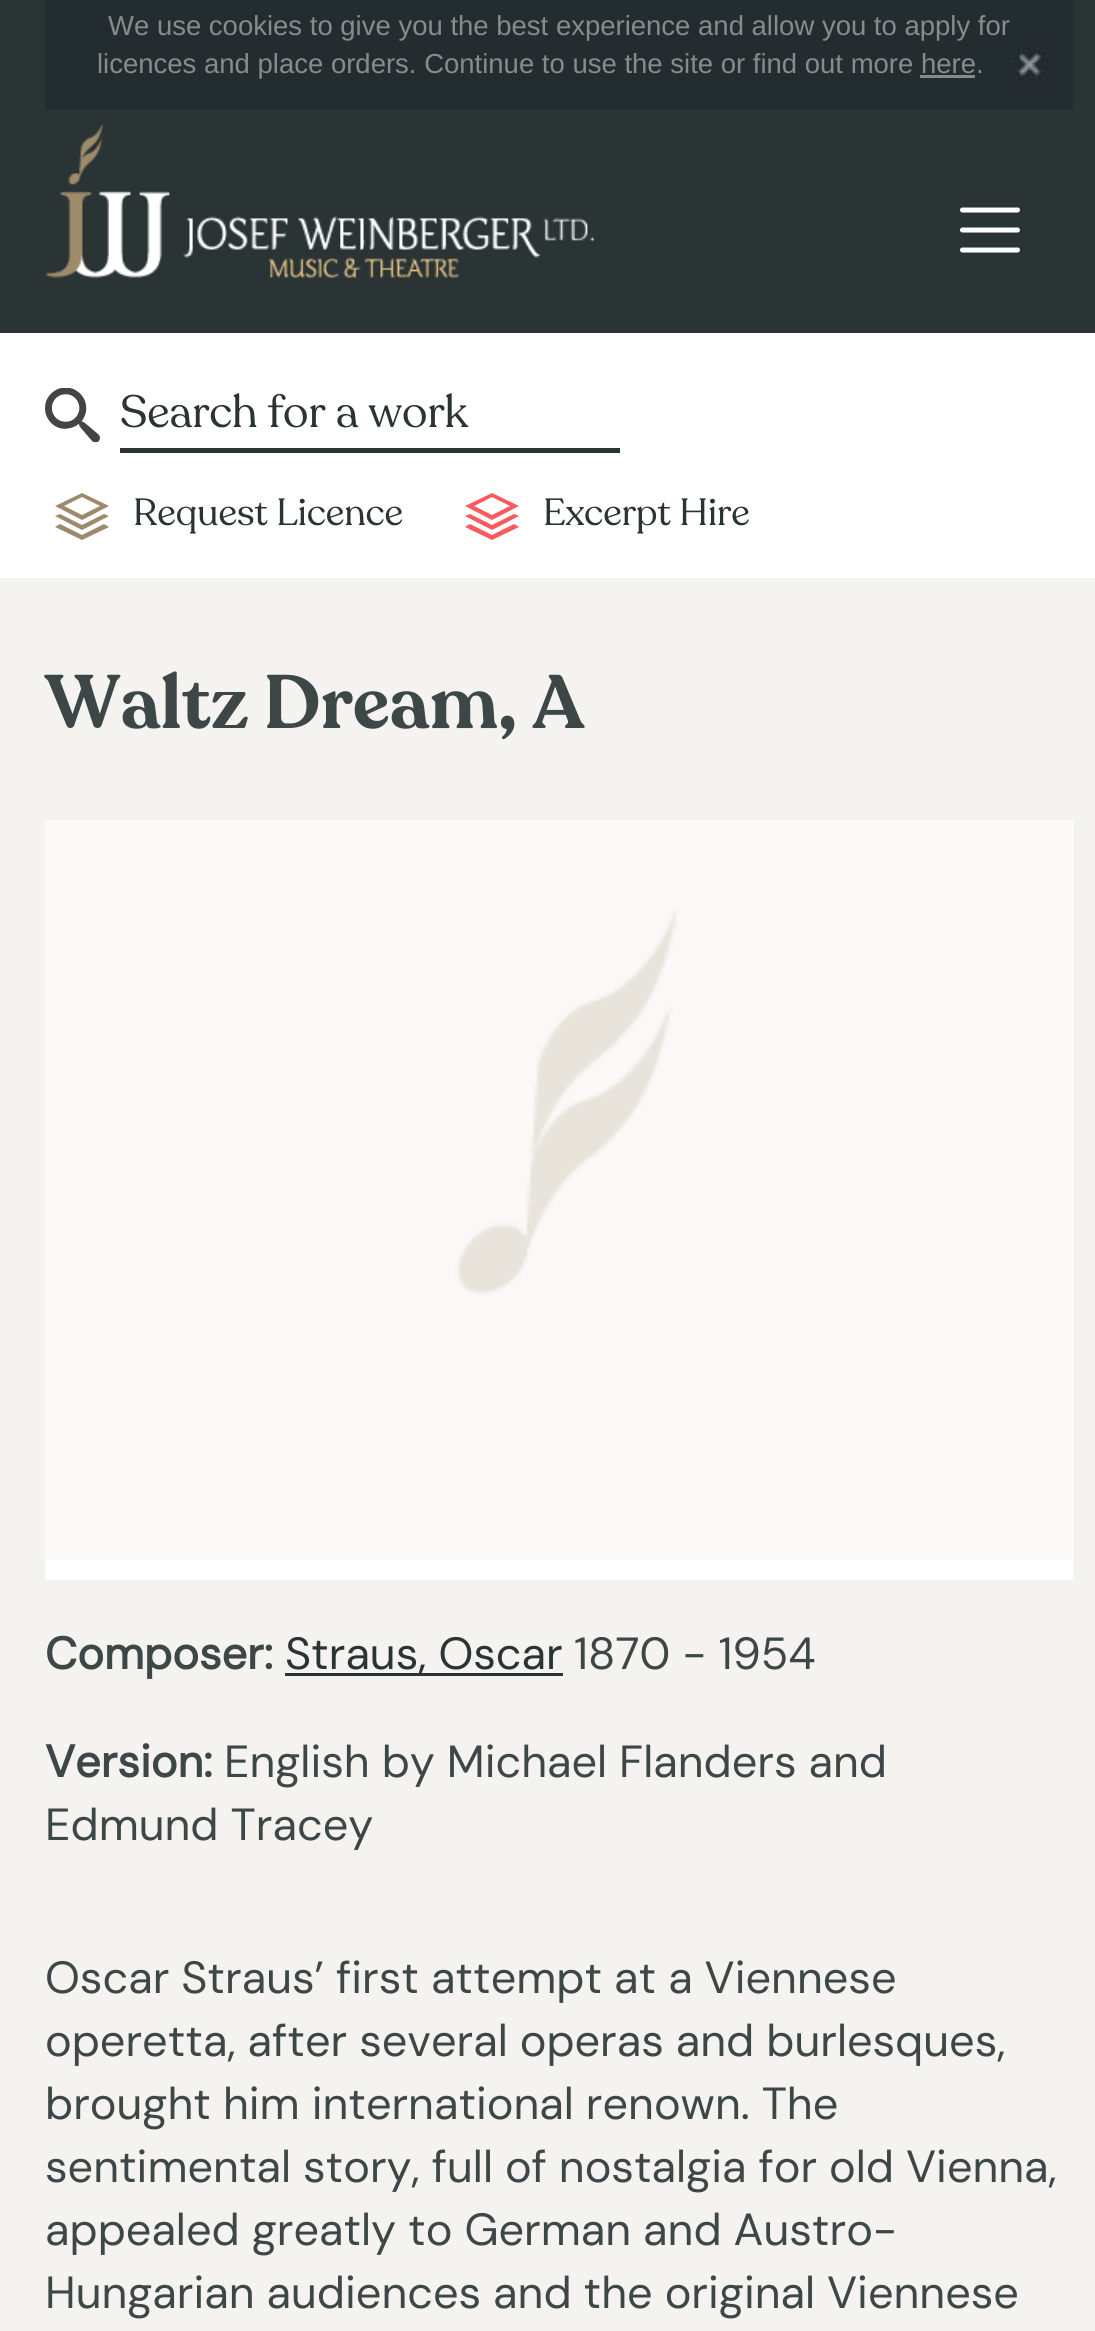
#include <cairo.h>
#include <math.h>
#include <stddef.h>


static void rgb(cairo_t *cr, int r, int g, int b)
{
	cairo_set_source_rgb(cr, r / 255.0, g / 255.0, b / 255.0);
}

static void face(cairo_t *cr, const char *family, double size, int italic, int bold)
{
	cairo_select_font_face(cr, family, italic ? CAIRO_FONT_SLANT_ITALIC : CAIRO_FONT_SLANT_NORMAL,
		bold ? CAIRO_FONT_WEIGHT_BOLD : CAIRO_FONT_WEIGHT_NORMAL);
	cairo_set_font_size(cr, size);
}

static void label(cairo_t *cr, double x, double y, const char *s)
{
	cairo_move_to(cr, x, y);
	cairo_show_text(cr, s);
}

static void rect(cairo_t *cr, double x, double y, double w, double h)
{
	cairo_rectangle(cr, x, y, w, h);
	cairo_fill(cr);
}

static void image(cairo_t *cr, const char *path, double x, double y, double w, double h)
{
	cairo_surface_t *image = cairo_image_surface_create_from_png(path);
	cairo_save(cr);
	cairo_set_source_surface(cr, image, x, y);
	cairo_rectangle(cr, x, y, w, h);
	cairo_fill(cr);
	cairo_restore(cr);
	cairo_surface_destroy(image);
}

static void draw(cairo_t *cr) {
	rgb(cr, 244, 243, 239);
	cairo_paint(cr);
	rgb(cr, 42, 52, 53);
	rect(cr, 0, 0, 1095, 333);
	rgb(cr, 35, 45, 47);
	rect(cr, 45, 0, 1028, 110);
	face(cr, "Liberation Sans", 27.5, 0, 0);
	rgb(cr, 134, 140, 141);
	label(cr, 108, 35, "We use cookies to give you the best experience and allow you to apply for");
	label(cr, 97, 73, "licences and place orders. Continue to use the site or find out more here.");
	image(cr, "image0.png", 1010, 45, 37, 37);
	rect(cr, 920, 75, 55, 3);
	image(cr, "image1.png", 45, 125, 550, 153);
	cairo_new_path(cr);
	cairo_move_to(cr, 962.5, 210);
	cairo_line_to(cr, 1017.5, 210);
	cairo_move_to(cr, 962.5, 230);
	cairo_line_to(cr, 1017.5, 230);
	cairo_move_to(cr, 962.5, 250);
	cairo_line_to(cr, 1017.5, 250);
	rgb(cr, 255, 255, 255);
	cairo_set_line_width(cr, 5);
	cairo_set_line_cap(cr, CAIRO_LINE_CAP_ROUND);
	cairo_stroke(cr);
	rect(cr, 0, 333, 1095, 245);
	image(cr, "image2.png", 45, 388, 55, 55);
	rgb(cr, 42, 52, 53);
	rect(cr, 120, 448, 500, 5);
	face(cr, "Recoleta", 45, 0, 0);
	label(cr, 120, 427, "Search for a work");
	rgb(cr, 157, 138, 108);
	cairo_new_path(cr);
	cairo_move_to(cr, 82, 535);
	cairo_line_to(cr, 60, 524);
	cairo_line_to(cr, 55, 527);
	cairo_line_to(cr, 82, 540);
	cairo_line_to(cr, 109, 527);
	cairo_line_to(cr, 104, 524);
	cairo_close_path(cr);
	cairo_move_to(cr, 82, 525);
	cairo_line_to(cr, 60, 514);
	cairo_line_to(cr, 55, 516);
	cairo_line_to(cr, 82, 530);
	cairo_line_to(cr, 109, 516);
	cairo_line_to(cr, 104, 514);
	cairo_close_path(cr);
	cairo_move_to(cr, 64, 506);
	cairo_line_to(cr, 82, 497);
	cairo_line_to(cr, 100, 506);
	cairo_line_to(cr, 82, 515);
	cairo_close_path(cr);
	cairo_move_to(cr, 82, 493);
	cairo_line_to(cr, 55, 506);
	cairo_line_to(cr, 82, 520);
	cairo_line_to(cr, 109, 506);
	cairo_close_path(cr);
	cairo_fill(cr);
	face(cr, "Recoleta", 37.5, 0, 0);
	rgb(cr, 42, 52, 53);
	label(cr, 133, 525, "Request Licence");
	rgb(cr, 251, 90, 93);
	cairo_new_path(cr);
	cairo_move_to(cr, 492, 535);
	cairo_line_to(cr, 470, 524);
	cairo_line_to(cr, 465, 527);
	cairo_line_to(cr, 492, 540);
	cairo_line_to(cr, 519, 527);
	cairo_line_to(cr, 514, 524);
	cairo_close_path(cr);
	cairo_move_to(cr, 492, 525);
	cairo_line_to(cr, 470, 514);
	cairo_line_to(cr, 465, 516);
	cairo_line_to(cr, 492, 530);
	cairo_line_to(cr, 519, 516);
	cairo_line_to(cr, 514, 514);
	cairo_close_path(cr);
	cairo_move_to(cr, 474, 506);
	cairo_line_to(cr, 492, 497);
	cairo_line_to(cr, 510, 506);
	cairo_line_to(cr, 492, 515);
	cairo_close_path(cr);
	cairo_move_to(cr, 492, 493);
	cairo_line_to(cr, 465, 506);
	cairo_line_to(cr, 492, 520);
	cairo_line_to(cr, 519, 506);
	cairo_close_path(cr);
	cairo_fill(cr);
	rgb(cr, 42, 52, 53);
	label(cr, 543, 525, "Excerpt Hire");
	face(cr, "Recoleta SemiBold", 75, 0, 0);
	rgb(cr, 62, 71, 71);
	label(cr, 45, 728, "Waltz Dream, A");
	rgb(cr, 255, 255, 255);
	rect(cr, 45, 820, 1028, 760);
	image(cr, "image3.png", 45, 820, 1027, 740);
	face(cr, "DM Sans", 45, 0, 1);
	rgb(cr, 62, 71, 71);
	label(cr, 45, 1669, "Composer:");
	rgb(cr, 40, 52, 54);
	rect(cr, 285, 1673, 278, 3);
	face(cr, "DM Sans", 45, 0, 0);
	rgb(cr, 42, 52, 53);
	label(cr, 285, 1669, "Straus, Oscar");
	rgb(cr, 62, 71, 71);
	label(cr, 574, 1669, "1870 - 1954");
	face(cr, "DM Sans", 45, 0, 1);
	label(cr, 45, 1777, "Version:");
	face(cr, "DM Sans", 45, 0, 0);
	label(cr, 224, 1777, "English by Michael Flanders and");
	label(cr, 45, 1840, "Edmund Tracey");
	label(cr, 45, 1993, "Oscar Straus’ first attempt at a Viennese");
	label(cr, 45, 2056, "operetta, after several operas and burlesques,");
	label(cr, 45, 2119, "brought him international renown. The");
	label(cr, 45, 2182, "sentimental story, full of nostalgia for old Vienna,");
	label(cr, 45, 2245, "appealed greatly to German and Austro-");
	label(cr, 45, 2308, "Hungarian audiences and the original Viennese");
}

int main(void) {
	cairo_surface_t *surface = cairo_image_surface_create(CAIRO_FORMAT_RGB24, 1095, 2331);
	cairo_t *cr = cairo_create(surface);
	cairo_font_options_t *options = cairo_font_options_create();
	cairo_font_options_set_hint_metrics(options, CAIRO_HINT_METRICS_OFF);
	cairo_font_options_set_hint_style(options, CAIRO_HINT_STYLE_NONE);
	cairo_set_font_options(cr, options);
	cairo_set_miter_limit(cr, 4);
	draw(cr);
	cairo_surface_write_to_png(surface, "render.png");
	cairo_font_options_destroy(options);
	cairo_destroy(cr);
	cairo_surface_destroy(surface);
	return 0;
}
